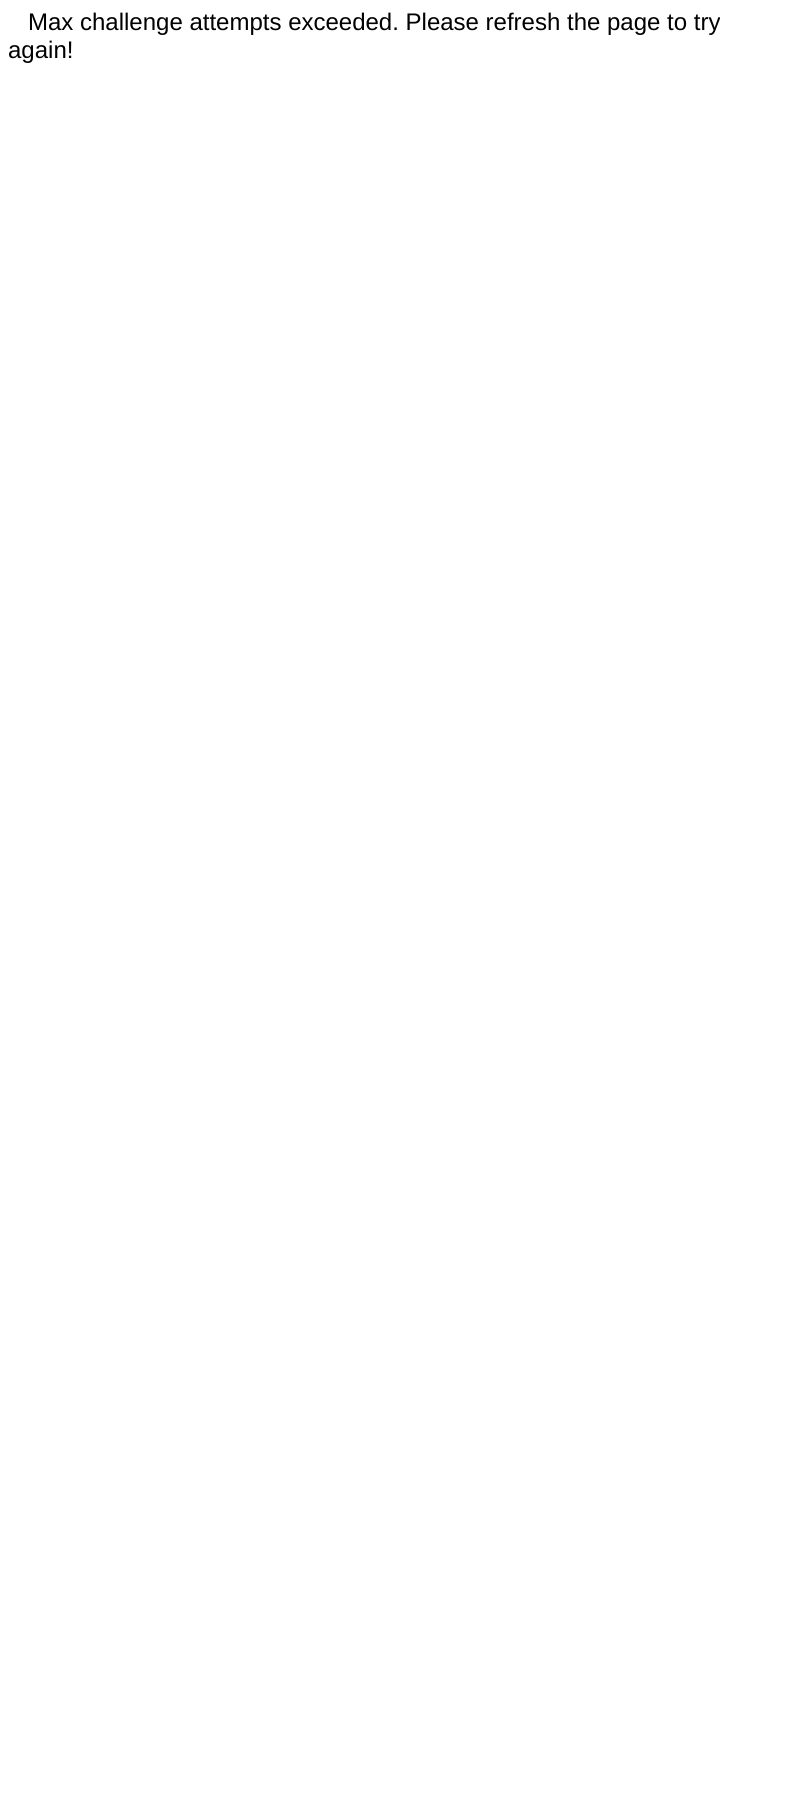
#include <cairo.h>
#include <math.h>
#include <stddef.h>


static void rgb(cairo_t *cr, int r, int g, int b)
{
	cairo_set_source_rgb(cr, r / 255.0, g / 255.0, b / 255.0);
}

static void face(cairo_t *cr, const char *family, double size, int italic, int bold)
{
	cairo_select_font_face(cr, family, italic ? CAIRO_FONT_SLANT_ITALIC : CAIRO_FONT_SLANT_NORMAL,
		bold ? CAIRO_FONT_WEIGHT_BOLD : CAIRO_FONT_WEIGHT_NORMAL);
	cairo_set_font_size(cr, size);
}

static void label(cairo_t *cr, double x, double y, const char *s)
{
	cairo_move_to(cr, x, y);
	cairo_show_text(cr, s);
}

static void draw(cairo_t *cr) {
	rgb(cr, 255, 255, 255);
	cairo_paint(cr);
	face(cr, "Liberation Sans", 24, 0, 0);
	rgb(cr, 0, 0, 0);
	label(cr, 28, 30, "Max challenge attempts exceeded. Please refresh the page to try");
	label(cr, 8, 58, "again!");
}

int main(void) {
	cairo_surface_t *surface = cairo_image_surface_create(CAIRO_FORMAT_RGB24, 802, 1807);
	cairo_t *cr = cairo_create(surface);
	cairo_font_options_t *options = cairo_font_options_create();
	cairo_font_options_set_hint_metrics(options, CAIRO_HINT_METRICS_OFF);
	cairo_font_options_set_hint_style(options, CAIRO_HINT_STYLE_NONE);
	cairo_set_font_options(cr, options);
	cairo_set_miter_limit(cr, 4);
	draw(cr);
	cairo_surface_write_to_png(surface, "render.png");
	cairo_font_options_destroy(options);
	cairo_destroy(cr);
	cairo_surface_destroy(surface);
	return 0;
}
